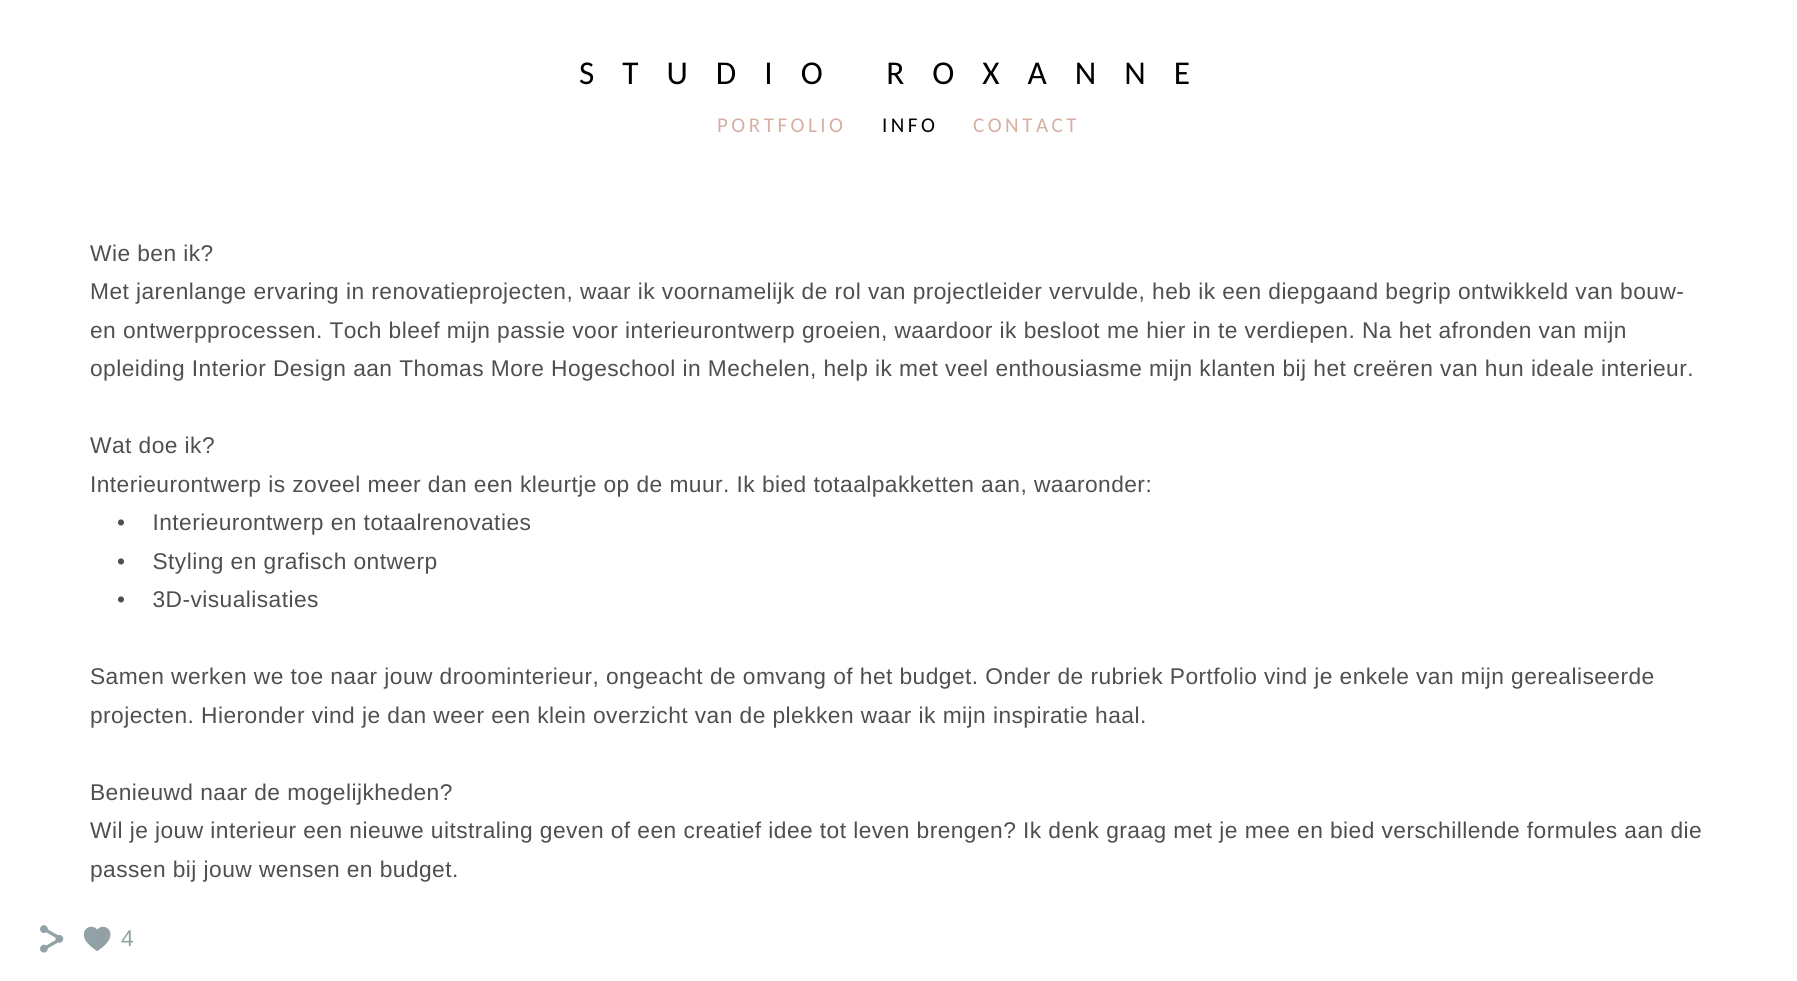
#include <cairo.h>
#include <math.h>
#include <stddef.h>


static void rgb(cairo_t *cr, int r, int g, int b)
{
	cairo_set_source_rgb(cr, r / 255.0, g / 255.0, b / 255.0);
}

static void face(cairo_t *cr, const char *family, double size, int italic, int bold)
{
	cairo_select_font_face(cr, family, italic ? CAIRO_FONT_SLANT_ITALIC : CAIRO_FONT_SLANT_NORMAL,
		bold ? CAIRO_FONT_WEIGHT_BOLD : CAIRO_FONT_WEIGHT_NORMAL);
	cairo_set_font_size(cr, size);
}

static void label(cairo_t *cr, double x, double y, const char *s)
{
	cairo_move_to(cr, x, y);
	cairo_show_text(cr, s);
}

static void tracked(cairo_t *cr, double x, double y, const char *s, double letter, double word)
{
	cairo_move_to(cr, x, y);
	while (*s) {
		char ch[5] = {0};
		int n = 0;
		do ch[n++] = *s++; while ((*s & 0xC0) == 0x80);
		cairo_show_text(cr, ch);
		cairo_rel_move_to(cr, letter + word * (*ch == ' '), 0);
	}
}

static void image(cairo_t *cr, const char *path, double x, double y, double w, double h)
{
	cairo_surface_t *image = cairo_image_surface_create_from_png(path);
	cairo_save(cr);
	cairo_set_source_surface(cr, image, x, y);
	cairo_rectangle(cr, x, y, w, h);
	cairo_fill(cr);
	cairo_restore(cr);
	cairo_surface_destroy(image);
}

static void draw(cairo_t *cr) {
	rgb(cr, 255, 255, 255);
	cairo_paint(cr);
	face(cr, "Carlito", 33.25, 0, 0);
	rgb(cr, 0, 0, 0);
	tracked(cr, 579, 84, "STUDIO ROXANNE", 28, 0);
	face(cr, "Carlito", 21, 0, 0);
	rgb(cr, 214, 175, 163);
	tracked(cr, 717, 132, "PORTFOLIO", 3.5, 0);
	rgb(cr, 0, 0, 0);
	tracked(cr, 882, 132, "INFO", 3.5, 0);
	rgb(cr, 214, 175, 163);
	tracked(cr, 973, 132, "CONTACT", 3.5, 0);
	face(cr, "Liberation Sans", 22.75, 0, 0);
	rgb(cr, 79, 79, 79);
	tracked(cr, 90, 261, "Wie ben ik?", 0.44, 0);
	tracked(cr, 90, 299, "Met jarenlange ervaring in renovatieprojecten, waar ik voornamelijk de rol van projectleider vervulde, heb ik een diepgaand begrip ontwikkeld van bouw-", 0.44, 0);
	tracked(cr, 90, 338, "en ontwerpprocessen. Toch bleef mijn passie voor interieurontwerp groeien, waardoor ik besloot me hier in te verdiepen. Na het afronden van mijn", 0.44, 0);
	tracked(cr, 90, 376, "opleiding Interior Design aan Thomas More Hogeschool in Mechelen, help ik met veel enthousiasme mijn klanten bij het creëren van hun ideale interieur.", 0.44, 0);
	tracked(cr, 90, 453, "Wat doe ik?", 0.44, 0);
	tracked(cr, 90, 492, "Interieurontwerp is zoveel meer dan een kleurtje op de muur. Ik bied totaalpakketten aan, waaronder:", 0.44, 0);
	tracked(cr, 117, 530, "•    Interieurontwerp en totaalrenovaties", 0.44, 0);
	tracked(cr, 117, 569, "•    Styling en grafisch ontwerp", 0.44, 0);
	tracked(cr, 117, 607, "•    3D-visualisaties", 0.44, 0);
	tracked(cr, 90, 684, "Samen werken we toe naar jouw droominterieur, ongeacht de omvang of het budget. Onder de rubriek Portfolio vind je enkele van mijn gerealiseerde", 0.44, 0);
	tracked(cr, 90, 723, "projecten. Hieronder vind je dan weer een klein overzicht van de plekken waar ik mijn inspiratie haal.", 0.44, 0);
	tracked(cr, 90, 800, "Benieuwd naar de mogelijkheden?", 0.44, 0);
	tracked(cr, 90, 838, "Wil je jouw interieur een nieuwe uitstraling geven of een creatief idee tot leven brengen? Ik denk graag met je mee en bied verschillende formules aan die", 0.44, 0);
	tracked(cr, 90, 877, "passen bij jouw wensen en budget.", 0.44, 0);
	image(cr, "image0.png", 40, 925, 24, 28);
	image(cr, "image1.png", 83, 926, 28, 25);
	rgb(cr, 145, 161, 166);
	label(cr, 121, 946, "4");
}

int main(void) {
	cairo_surface_t *surface = cairo_image_surface_create(CAIRO_FORMAT_RGB24, 1797, 981);
	cairo_t *cr = cairo_create(surface);
	cairo_font_options_t *options = cairo_font_options_create();
	cairo_font_options_set_hint_metrics(options, CAIRO_HINT_METRICS_OFF);
	cairo_font_options_set_hint_style(options, CAIRO_HINT_STYLE_NONE);
	cairo_set_font_options(cr, options);
	cairo_set_miter_limit(cr, 4);
	draw(cr);
	cairo_surface_write_to_png(surface, "render.png");
	cairo_font_options_destroy(options);
	cairo_destroy(cr);
	cairo_surface_destroy(surface);
	return 0;
}
